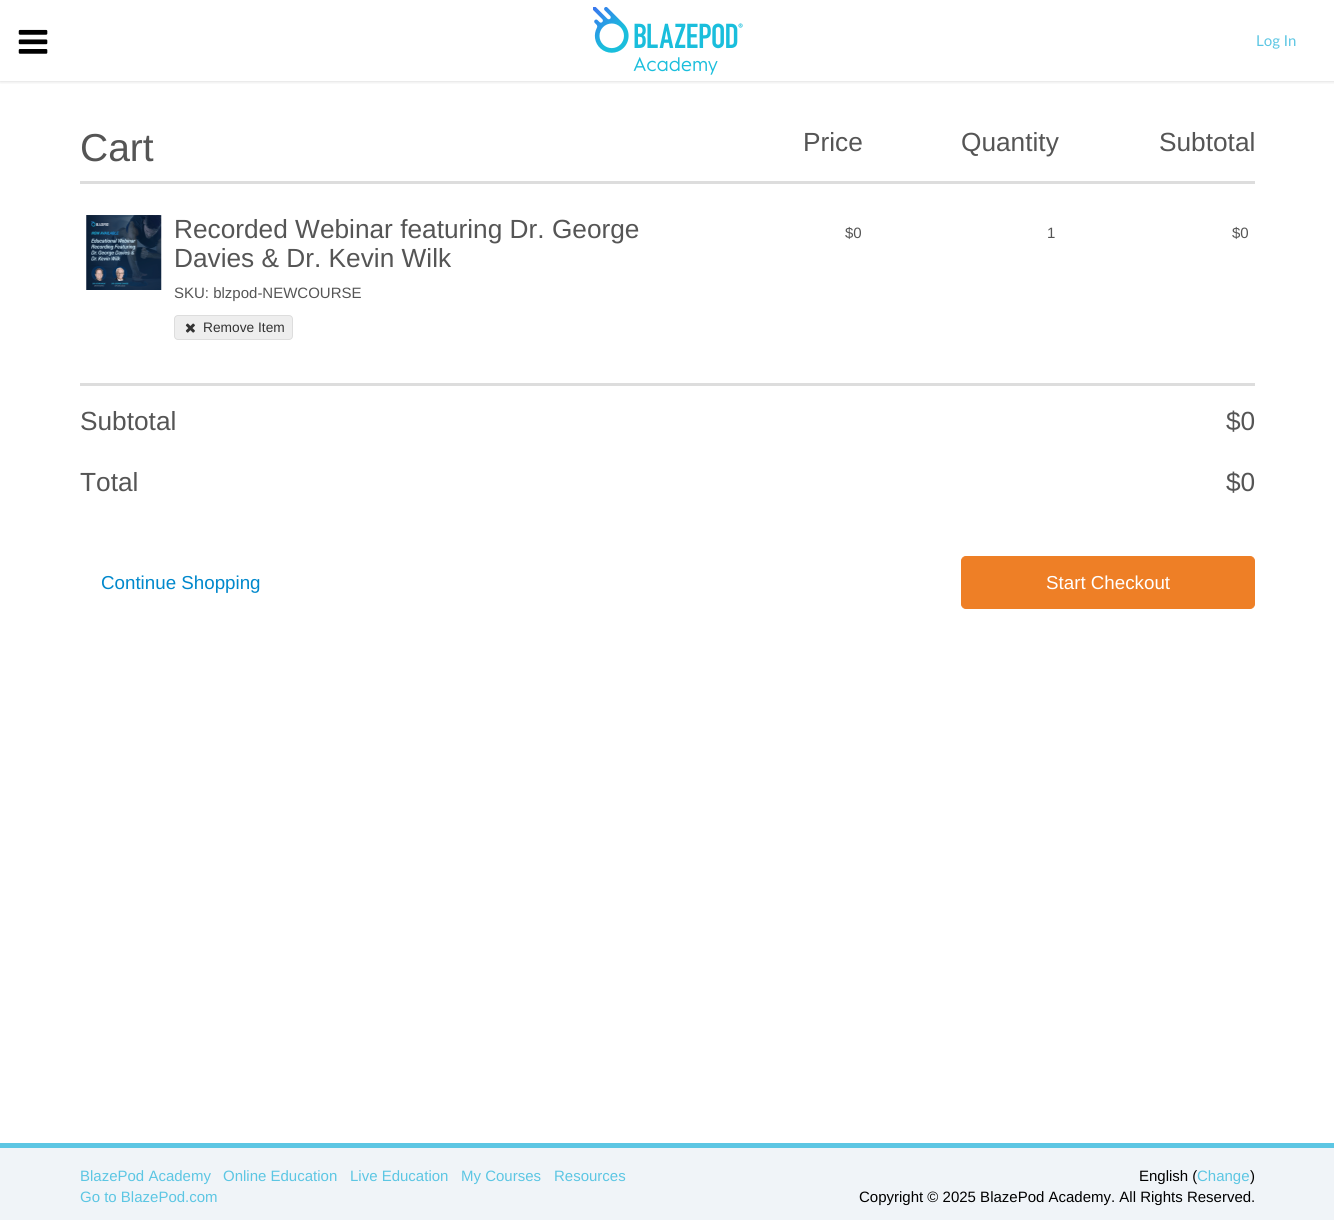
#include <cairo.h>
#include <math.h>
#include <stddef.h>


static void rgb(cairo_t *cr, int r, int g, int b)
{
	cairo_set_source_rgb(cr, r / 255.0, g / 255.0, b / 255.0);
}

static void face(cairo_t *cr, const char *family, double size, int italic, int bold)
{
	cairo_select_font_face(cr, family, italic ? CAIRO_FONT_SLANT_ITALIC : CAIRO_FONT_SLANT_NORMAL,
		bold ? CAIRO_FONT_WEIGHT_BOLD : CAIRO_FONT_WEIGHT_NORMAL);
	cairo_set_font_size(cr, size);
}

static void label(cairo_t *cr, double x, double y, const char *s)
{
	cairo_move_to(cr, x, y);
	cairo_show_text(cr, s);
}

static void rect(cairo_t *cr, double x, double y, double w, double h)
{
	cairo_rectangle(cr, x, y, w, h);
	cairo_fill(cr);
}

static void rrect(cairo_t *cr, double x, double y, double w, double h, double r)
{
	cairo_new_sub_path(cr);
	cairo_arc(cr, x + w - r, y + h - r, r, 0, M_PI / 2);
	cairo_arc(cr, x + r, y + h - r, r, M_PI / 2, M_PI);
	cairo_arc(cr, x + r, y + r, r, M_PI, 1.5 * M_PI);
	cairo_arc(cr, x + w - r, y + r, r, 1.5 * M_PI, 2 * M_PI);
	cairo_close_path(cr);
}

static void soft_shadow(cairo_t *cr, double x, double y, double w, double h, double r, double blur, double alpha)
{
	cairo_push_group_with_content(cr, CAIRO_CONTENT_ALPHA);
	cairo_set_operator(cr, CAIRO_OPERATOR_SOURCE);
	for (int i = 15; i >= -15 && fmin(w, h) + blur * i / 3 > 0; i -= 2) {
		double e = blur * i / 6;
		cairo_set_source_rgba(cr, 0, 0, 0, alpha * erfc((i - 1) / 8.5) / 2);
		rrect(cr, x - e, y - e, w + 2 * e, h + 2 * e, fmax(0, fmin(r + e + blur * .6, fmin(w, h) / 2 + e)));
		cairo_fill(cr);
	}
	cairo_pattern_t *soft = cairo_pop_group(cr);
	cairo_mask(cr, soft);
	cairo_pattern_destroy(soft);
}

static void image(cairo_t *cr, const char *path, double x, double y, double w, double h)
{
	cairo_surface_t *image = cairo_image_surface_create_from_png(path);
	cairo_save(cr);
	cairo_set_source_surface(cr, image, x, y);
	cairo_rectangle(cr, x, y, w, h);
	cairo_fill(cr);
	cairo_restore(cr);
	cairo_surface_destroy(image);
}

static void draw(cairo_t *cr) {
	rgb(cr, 255, 255, 255);
	cairo_paint(cr);
	cairo_save(cr);
	cairo_rectangle(cr, 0, 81, 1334, 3);
	cairo_clip(cr);
	rgb(cr, 0, 0, 0);
	soft_shadow(cr, 0, 0, 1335, 81, 0, 2, 0.2);
	cairo_restore(cr);
	image(cr, "image0.png", 18, 29, 30, 25);
	image(cr, "image1.png", 593, 7, 150, 68);
	face(cr, "Lato", 15, 0, 0);
	rgb(cr, 92, 198, 227);
	label(cr, 1256, 46, "Log In");
	rgb(cr, 221, 221, 221);
	rect(cr, 80, 181, 1175, 3);
	face(cr, "Liberation Sans", 39, 0, 0);
	rgb(cr, 85, 85, 85);
	label(cr, 80, 161, "Cart");
	face(cr, "Liberation Sans", 26.25, 0, 0);
	label(cr, 803, 151, "Price");
	label(cr, 961, 151, "Quantity");
	label(cr, 1159, 151, "Subtotal");
	image(cr, "image2.png", 86, 215, 76, 75);
	label(cr, 174, 238, "Recorded Webinar featuring Dr. George");
	label(cr, 174, 267, "Davies & Dr. Kevin Wilk");
	face(cr, "Liberation Sans", 15, 0, 0);
	label(cr, 174, 298, "SKU: blzpod-NEWCOURSE");
	label(cr, 845, 238, "$0");
	label(cr, 1047, 238, "1");
	label(cr, 1232, 238, "$0");
	rgb(cr, 238, 238, 238);
	rrect(cr, 174.5, 315.5, 118, 24, 3.5);
	cairo_fill_preserve(cr);
	rgb(cr, 221, 221, 221);
	cairo_set_line_width(cr, 1);
	cairo_stroke(cr);
	image(cr, "image3.png", 185, 323, 10, 10);
	face(cr, "Liberation Sans", 13.75, 0, 0);
	rgb(cr, 51, 51, 51);
	label(cr, 203, 332, "Remove Item");
	rgb(cr, 221, 221, 221);
	rect(cr, 80, 383, 1175, 3);
	face(cr, "Liberation Sans", 26.25, 0, 0);
	rgb(cr, 85, 85, 85);
	label(cr, 80, 430, "Subtotal");
	label(cr, 1226, 430, "$0");
	label(cr, 80, 491, "Total");
	label(cr, 1226, 491, "$0");
	face(cr, "Liberation Sans", 18.75, 0, 0);
	rgb(cr, 0, 136, 204);
	label(cr, 101, 589, "Continue Shopping");
	rgb(cr, 238, 127, 38);
	rrect(cr, 961.5, 556.5, 293, 52, 4.5);
	cairo_fill_preserve(cr);
	cairo_stroke(cr);
	rgb(cr, 255, 255, 255);
	label(cr, 1046, 589, "Start Checkout");
	rgb(cr, 240, 244, 248);
	rect(cr, 0, 1148, 1334, 72);
	rgb(cr, 92, 198, 227);
	rect(cr, 0, 1143, 1334, 5);
	face(cr, "Liberation Sans", 15, 0, 0);
	label(cr, 80, 1181, "BlazePod Academy");
	label(cr, 223, 1181, "Online Education");
	label(cr, 350, 1181, "Live Education");
	label(cr, 461, 1181, "My Courses");
	label(cr, 554, 1181, "Resources");
	label(cr, 80, 1202, "Go to BlazePod.com");
	rgb(cr, 0, 0, 0);
	label(cr, 1139, 1181, "English (");
	rgb(cr, 92, 198, 227);
	label(cr, 1197, 1181, "Change");
	rgb(cr, 0, 0, 0);
	label(cr, 1250, 1181, ")");
	label(cr, 859, 1202, "Copyright © 2025 BlazePod Academy. All Rights Reserved.");
}

int main(void) {
	cairo_surface_t *surface = cairo_image_surface_create(CAIRO_FORMAT_RGB24, 1334, 1220);
	cairo_t *cr = cairo_create(surface);
	cairo_font_options_t *options = cairo_font_options_create();
	cairo_font_options_set_hint_metrics(options, CAIRO_HINT_METRICS_OFF);
	cairo_font_options_set_hint_style(options, CAIRO_HINT_STYLE_NONE);
	cairo_set_font_options(cr, options);
	cairo_set_miter_limit(cr, 4);
	draw(cr);
	cairo_surface_write_to_png(surface, "render.png");
	cairo_font_options_destroy(options);
	cairo_destroy(cr);
	cairo_surface_destroy(surface);
	return 0;
}
